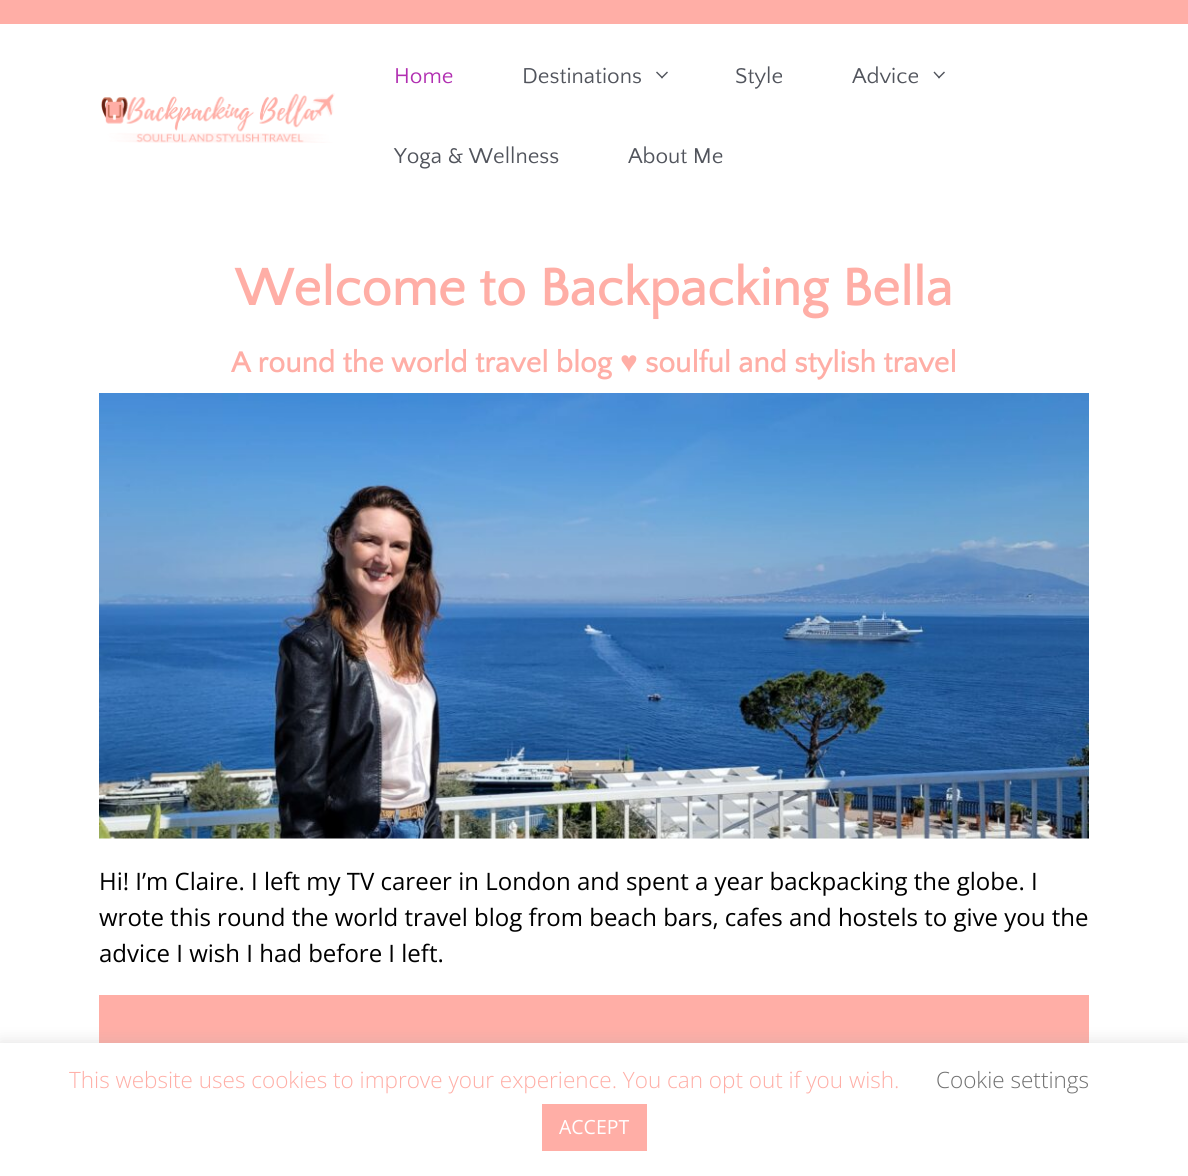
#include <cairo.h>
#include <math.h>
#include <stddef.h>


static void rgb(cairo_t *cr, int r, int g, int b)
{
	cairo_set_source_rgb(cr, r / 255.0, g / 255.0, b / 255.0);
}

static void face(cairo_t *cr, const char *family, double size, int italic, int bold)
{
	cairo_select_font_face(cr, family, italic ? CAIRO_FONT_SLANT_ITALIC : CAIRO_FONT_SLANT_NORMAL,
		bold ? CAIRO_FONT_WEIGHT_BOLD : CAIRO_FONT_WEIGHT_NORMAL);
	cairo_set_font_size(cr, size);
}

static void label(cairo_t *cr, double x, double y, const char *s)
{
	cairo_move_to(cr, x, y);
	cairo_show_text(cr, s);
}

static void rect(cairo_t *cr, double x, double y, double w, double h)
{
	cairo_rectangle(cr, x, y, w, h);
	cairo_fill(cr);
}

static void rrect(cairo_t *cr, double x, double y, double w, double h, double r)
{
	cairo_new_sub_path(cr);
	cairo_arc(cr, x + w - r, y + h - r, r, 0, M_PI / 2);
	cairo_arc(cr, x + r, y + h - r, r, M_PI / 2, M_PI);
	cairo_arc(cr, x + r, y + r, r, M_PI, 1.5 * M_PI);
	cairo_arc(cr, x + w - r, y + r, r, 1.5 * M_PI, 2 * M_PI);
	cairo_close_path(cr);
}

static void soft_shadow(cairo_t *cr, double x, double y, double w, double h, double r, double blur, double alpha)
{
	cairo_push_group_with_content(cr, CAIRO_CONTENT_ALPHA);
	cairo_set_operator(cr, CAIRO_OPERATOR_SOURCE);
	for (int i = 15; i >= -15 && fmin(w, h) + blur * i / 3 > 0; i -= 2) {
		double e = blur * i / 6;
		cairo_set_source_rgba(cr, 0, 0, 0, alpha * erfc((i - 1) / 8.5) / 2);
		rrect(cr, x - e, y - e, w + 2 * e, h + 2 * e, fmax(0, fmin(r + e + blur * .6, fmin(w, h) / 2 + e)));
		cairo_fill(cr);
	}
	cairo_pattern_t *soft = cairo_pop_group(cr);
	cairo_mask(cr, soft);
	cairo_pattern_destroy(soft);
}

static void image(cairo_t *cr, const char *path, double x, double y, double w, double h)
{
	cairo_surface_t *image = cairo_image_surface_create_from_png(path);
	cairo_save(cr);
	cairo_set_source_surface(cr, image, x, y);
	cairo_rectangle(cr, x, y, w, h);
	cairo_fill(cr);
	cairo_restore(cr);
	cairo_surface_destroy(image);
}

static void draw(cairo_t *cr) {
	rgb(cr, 255, 174, 166);
	cairo_paint(cr);
	rgb(cr, 255, 255, 255);
	rect(cr, 0, 24, 1188, 1019);
	image(cr, "image0.png", 101, 93, 234, 50);
	face(cr, "Quattrocento Sans", 22.5, 0, 0);
	rgb(cr, 177, 47, 177);
	label(cr, 394, 83, "Home");
	rgb(cr, 81, 84, 92);
	label(cr, 522, 83, "Destinations");
	cairo_new_path(cr);
	cairo_move_to(cr, 667, 71.5);
	cairo_line_to(cr, 668, 72.5);
	cairo_line_to(cr, 662, 78.5);
	cairo_line_to(cr, 661, 77.5);
	cairo_close_path(cr);
	cairo_fill(cr);
	cairo_new_path(cr);
	cairo_move_to(cr, 657, 71.5);
	cairo_line_to(cr, 663, 77.5);
	cairo_line_to(cr, 662, 78.5);
	cairo_line_to(cr, 656, 72.5);
	cairo_close_path(cr);
	cairo_fill(cr);
	label(cr, 735, 83, "Style");
	label(cr, 852, 83, "Advice");
	cairo_new_path(cr);
	cairo_move_to(cr, 944, 71.5);
	cairo_line_to(cr, 945, 72.5);
	cairo_line_to(cr, 939, 78.5);
	cairo_line_to(cr, 938, 77.5);
	cairo_close_path(cr);
	cairo_fill(cr);
	cairo_new_path(cr);
	cairo_move_to(cr, 934.5, 71.5);
	cairo_line_to(cr, 940, 77.5);
	cairo_line_to(cr, 939, 78.5);
	cairo_line_to(cr, 933.5, 72.5);
	cairo_close_path(cr);
	cairo_fill(cr);
	label(cr, 394, 163, "Yoga & Wellness");
	label(cr, 628, 163, "About Me");
	face(cr, "Quattrocento Sans", 54, 0, 1);
	rgb(cr, 255, 174, 166);
	label(cr, 235, 305, "Welcome to Backpacking Bella");
	face(cr, "Quattrocento Sans", 30, 0, 1);
	label(cr, 231, 372, "A round the world travel blog");
	face(cr, "Liberation Serif", 30, 0, 1);
	label(cr, 620, 372, "♥");
	face(cr, "Quattrocento Sans", 30, 0, 1);
	label(cr, 645, 372, "soulful and stylish travel");
	image(cr, "image1.png", 99, 393, 990, 446);
	face(cr, "Open Sans", 24, 0, 0);
	rgb(cr, 0, 0, 0);
	label(cr, 99, 890, "Hi! I’m Claire. I left my TV career in London and spent a year backpacking the globe. I");
	label(cr, 99, 926, "wrote this round the world travel blog from beach bars, cafes and hostels to give you the");
	label(cr, 99, 962, "advice I wish I had before I left.");
	rgb(cr, 255, 174, 166);
	rect(cr, 99, 995, 990, 48);
	rgb(cr, 172, 171, 171);
	soft_shadow(cr, 0, 1041, 1188, 134, 0, 7.5, 0.3);
	rgb(cr, 255, 255, 255);
	rect(cr, 0, 1043, 1188, 133);
	face(cr, "Open Sans Light", 22.5, 0, 0);
	rgb(cr, 255, 174, 166);
	label(cr, 69, 1088, "This website uses cookies to improve your experience. You can opt out if you wish.");
	rgb(cr, 112, 112, 112);
	label(cr, 936, 1088, "Cookie settings");
	rgb(cr, 255, 174, 166);
	rect(cr, 542, 1104, 105, 47);
	face(cr, "Open Sans", 19.5, 0, 0);
	rgb(cr, 255, 255, 255);
	label(cr, 559, 1134, "ACCEPT");
}

int main(void) {
	cairo_surface_t *surface = cairo_image_surface_create(CAIRO_FORMAT_RGB24, 1188, 1176);
	cairo_t *cr = cairo_create(surface);
	cairo_font_options_t *options = cairo_font_options_create();
	cairo_font_options_set_hint_metrics(options, CAIRO_HINT_METRICS_OFF);
	cairo_font_options_set_hint_style(options, CAIRO_HINT_STYLE_NONE);
	cairo_set_font_options(cr, options);
	cairo_set_miter_limit(cr, 4);
	draw(cr);
	cairo_surface_write_to_png(surface, "render.png");
	cairo_font_options_destroy(options);
	cairo_destroy(cr);
	cairo_surface_destroy(surface);
	return 0;
}
